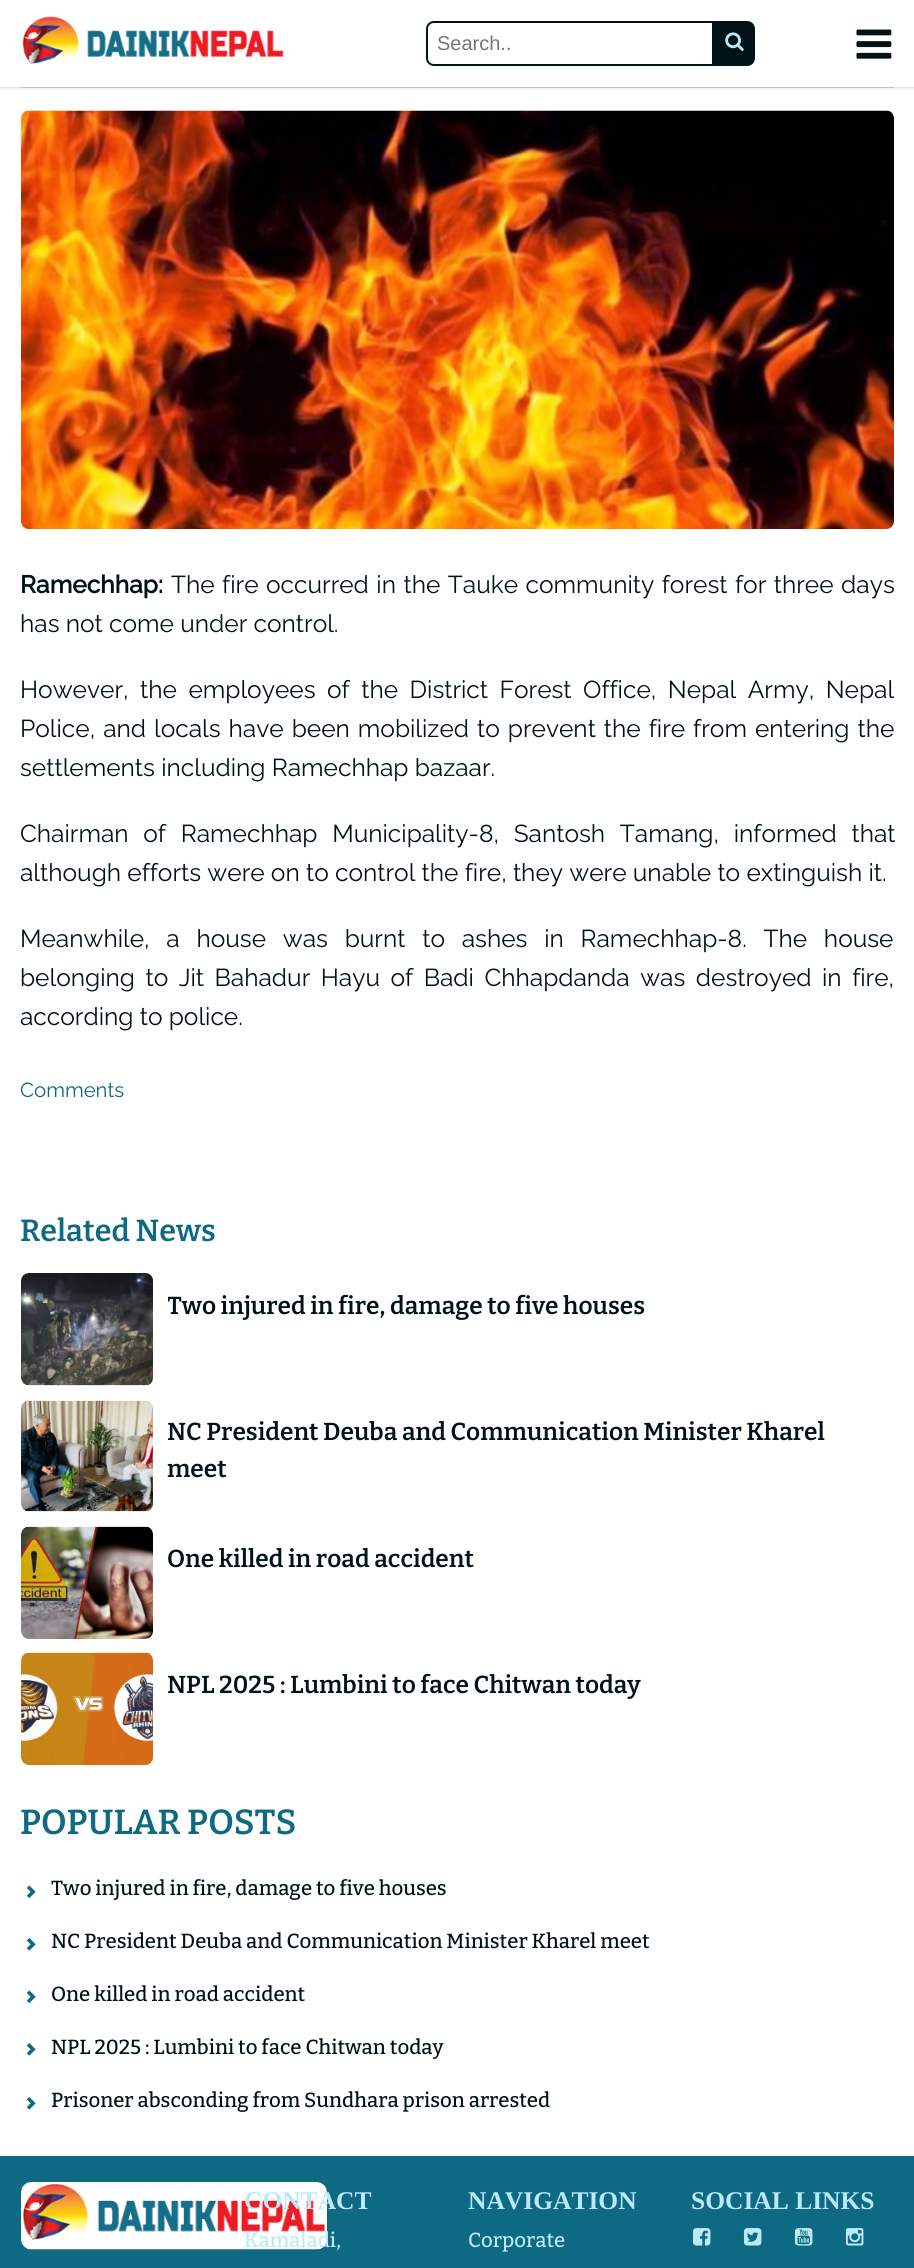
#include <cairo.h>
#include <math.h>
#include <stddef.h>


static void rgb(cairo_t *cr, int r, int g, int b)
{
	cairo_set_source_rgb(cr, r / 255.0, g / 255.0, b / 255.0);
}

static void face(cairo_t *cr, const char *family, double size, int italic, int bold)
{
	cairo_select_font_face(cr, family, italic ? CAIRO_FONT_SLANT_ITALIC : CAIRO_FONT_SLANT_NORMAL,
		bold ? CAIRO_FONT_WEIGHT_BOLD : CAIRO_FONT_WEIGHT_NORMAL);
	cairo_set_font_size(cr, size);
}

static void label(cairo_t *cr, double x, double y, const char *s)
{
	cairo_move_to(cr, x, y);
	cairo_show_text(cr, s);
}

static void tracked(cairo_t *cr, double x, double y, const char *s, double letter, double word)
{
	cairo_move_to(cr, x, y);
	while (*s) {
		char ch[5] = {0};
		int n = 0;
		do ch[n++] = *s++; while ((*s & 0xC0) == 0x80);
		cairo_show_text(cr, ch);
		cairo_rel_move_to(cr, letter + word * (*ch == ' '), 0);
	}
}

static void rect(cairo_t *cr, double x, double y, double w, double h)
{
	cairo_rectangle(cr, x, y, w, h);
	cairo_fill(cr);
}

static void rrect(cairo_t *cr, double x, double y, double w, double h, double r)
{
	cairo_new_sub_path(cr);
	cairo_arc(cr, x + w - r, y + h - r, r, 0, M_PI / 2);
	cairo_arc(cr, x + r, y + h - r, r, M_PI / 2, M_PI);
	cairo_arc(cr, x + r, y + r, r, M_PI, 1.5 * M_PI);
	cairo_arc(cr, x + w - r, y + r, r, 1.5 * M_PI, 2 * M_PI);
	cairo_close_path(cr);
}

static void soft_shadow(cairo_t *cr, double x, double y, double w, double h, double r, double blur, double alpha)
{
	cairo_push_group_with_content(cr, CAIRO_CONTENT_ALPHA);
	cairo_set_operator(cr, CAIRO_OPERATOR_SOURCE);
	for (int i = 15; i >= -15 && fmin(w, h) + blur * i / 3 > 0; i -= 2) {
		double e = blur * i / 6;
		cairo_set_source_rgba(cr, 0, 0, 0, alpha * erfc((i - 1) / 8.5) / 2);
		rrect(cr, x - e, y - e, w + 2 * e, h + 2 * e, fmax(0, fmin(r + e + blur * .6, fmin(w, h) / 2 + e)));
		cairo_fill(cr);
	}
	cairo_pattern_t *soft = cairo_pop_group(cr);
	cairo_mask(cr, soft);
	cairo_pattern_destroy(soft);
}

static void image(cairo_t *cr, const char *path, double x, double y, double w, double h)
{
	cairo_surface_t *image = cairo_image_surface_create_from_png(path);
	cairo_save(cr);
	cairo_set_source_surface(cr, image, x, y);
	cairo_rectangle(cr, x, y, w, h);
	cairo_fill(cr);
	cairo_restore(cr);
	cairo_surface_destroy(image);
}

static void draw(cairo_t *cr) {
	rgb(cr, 255, 255, 255);
	cairo_paint(cr);
	rgb(cr, 207, 225, 230);
	rect(cr, 21, 87, 873, 1);
	rgb(cr, 2, 19, 23);
	soft_shadow(cr, 0, 0, 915, 87, 0, 2, 0.3);
	rgb(cr, 255, 255, 255);
	rect(cr, 0, 0, 914, 87);
	image(cr, "image0.png", 22, 16, 262, 48);
	cairo_new_path(cr);
	cairo_move_to(cr, 434, 22);
	cairo_line_to(cr, 713, 22);
	cairo_line_to(cr, 713, 65);
	cairo_line_to(cr, 434, 65);
	cairo_curve_to(cr, 430, 65, 427, 62, 427, 58);
	cairo_line_to(cr, 427, 29);
	cairo_curve_to(cr, 427, 25, 430, 22, 434, 22);
	cairo_close_path(cr);
	rgb(cr, 2, 19, 23);
	cairo_stroke(cr);
	face(cr, "Liberation Sans", 20, 0, 0);
	rgb(cr, 117, 117, 117);
	label(cr, 437, 50, "Search..");
	rgb(cr, 2, 19, 23);
	cairo_new_path(cr);
	cairo_move_to(cr, 714, 21);
	cairo_line_to(cr, 747, 21);
	cairo_curve_to(cr, 751.5, 21, 755, 24.5, 755, 29);
	cairo_line_to(cr, 755, 58);
	cairo_curve_to(cr, 755, 62.5, 751.5, 66, 747, 66);
	cairo_line_to(cr, 714, 66);
	cairo_close_path(cr);
	cairo_fill(cr);
	image(cr, "image1.png", 725, 32, 19, 19);
	image(cr, "image2.png", 856, 29, 36, 30);
	image(cr, "image3.png", 21, 110, 873, 419);
	face(cr, "Raleway", 24.5, 0, 1);
	label(cr, 20, 593, "Ramechhap:");
	face(cr, "Raleway Thin", 24.5, 0, 0);
	tracked(cr, 171, 593, "The fire occurred in the Tauke community forest for three days", 0, 1.25);
	label(cr, 20, 632, "has not come under control.");
	tracked(cr, 20, 698, "However, the employees of the District Forest Office, Nepal Army, Nepal", 0, 5.25);
	tracked(cr, 20, 737, "Police, and locals have been mobilized to prevent the fire from entering the", 0, 1.75);
	label(cr, 20, 776, "settlements including Ramechhap bazaar.");
	tracked(cr, 20, 842, "Chairman of Ramechhap Municipality-8, Santosh Tamang, informed that", 0, 8.5);
	label(cr, 20, 881, "although efforts were on to control the fire, they were unable to extinguish it.");
	tracked(cr, 20, 947, "Meanwhile, a house was burnt to ashes in Ramechhap-8. The house", 0, 10.5);
	tracked(cr, 20, 986, "belonging to Jit Bahadur Hayu of Badi Chhapdanda was destroyed in fire,", 0, 4.25);
	label(cr, 20, 1025, "according to police.");
	face(cr, "Raleway Thin", 20.4, 0, 0);
	rgb(cr, 14, 105, 130);
	label(cr, 20, 1097, "Comments");
	face(cr, "Bitter Thin", 30.5, 0, 0);
	label(cr, 20, 1241, "Related News");
	image(cr, "image4.png", 21, 1273, 132, 113);
	cairo_save(cr);
	cairo_rectangle(cr, 168, 1289, 713, 36);
	cairo_clip(cr);
	face(cr, "Bitter Thin", 24.5, 0, 0);
	rgb(cr, 2, 19, 23);
	label(cr, 167, 1314, "Two injured in fire, damage to five houses");
	cairo_restore(cr);
	image(cr, "image5.png", 21, 1400, 132, 112);
	face(cr, "Bitter Thin", 24.5, 0, 0);
	rgb(cr, 2, 19, 23);
	label(cr, 167, 1440, "NC President Deuba and Communication Minister Kharel");
	label(cr, 167, 1477, "meet");
	image(cr, "image6.png", 21, 1526, 132, 113);
	label(cr, 167, 1567, "One killed in road accident");
	image(cr, "image7.png", 21, 1652, 132, 113);
	label(cr, 167, 1693, "NPL 2025 : Lumbini to face Chitwan today");
	face(cr, "Bitter Thin", 34.75, 0, 0);
	rgb(cr, 14, 105, 130);
	label(cr, 20, 1834, "POPULAR POSTS");
	image(cr, "image8.png", 26, 1885, 10, 14);
	face(cr, "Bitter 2 Thin", 20.4, 0, 0);
	rgb(cr, 2, 19, 23);
	label(cr, 51, 1895, "Two injured in fire, damage to five houses");
	image(cr, "image9.png", 26, 1938, 10, 13);
	label(cr, 51, 1948, "NC President Deuba and Communication Minister Kharel meet");
	image(cr, "image8.png", 26, 1990, 10, 14);
	label(cr, 51, 2001, "One killed in road accident");
	image(cr, "image9.png", 26, 2043, 10, 13);
	label(cr, 51, 2054, "NPL 2025 : Lumbini to face Chitwan today");
	image(cr, "image9.png", 26, 2097, 10, 13);
	label(cr, 51, 2107, "Prisoner absconding from Sundhara prison arrested");
	rgb(cr, 14, 105, 130);
	rect(cr, 0, 2156, 914, 112);
	image(cr, "image10.png", 21, 2182, 306, 68);
	face(cr, "Liberation Serif", 25.5, 0, 1);
	rgb(cr, 186, 234, 248);
	label(cr, 244, 2209, "CONTACT");
	face(cr, "Bitter 2 Thin", 20.4, 0, 0);
	label(cr, 244, 2247, "Kamaladi,");
	face(cr, "Liberation Serif", 25.5, 0, 1);
	label(cr, 468, 2209, "NAVIGATION");
	face(cr, "Bitter 2 Thin", 20.4, 0, 0);
	label(cr, 468, 2247, "Corporate");
	face(cr, "Liberation Serif", 25.5, 0, 1);
	label(cr, 691, 2209, "SOCIAL LINKS");
	image(cr, "image11.png", 692, 2228, 19, 18);
	image(cr, "image12.png", 743, 2228, 19, 18);
	image(cr, "image13.png", 794, 2228, 19, 18);
	image(cr, "image14.png", 845, 2228, 19, 18);
}

int main(void) {
	cairo_surface_t *surface = cairo_image_surface_create(CAIRO_FORMAT_RGB24, 914, 2268);
	cairo_t *cr = cairo_create(surface);
	cairo_font_options_t *options = cairo_font_options_create();
	cairo_font_options_set_hint_metrics(options, CAIRO_HINT_METRICS_OFF);
	cairo_font_options_set_hint_style(options, CAIRO_HINT_STYLE_NONE);
	cairo_set_font_options(cr, options);
	cairo_set_miter_limit(cr, 4);
	draw(cr);
	cairo_surface_write_to_png(surface, "render.png");
	cairo_font_options_destroy(options);
	cairo_destroy(cr);
	cairo_surface_destroy(surface);
	return 0;
}
